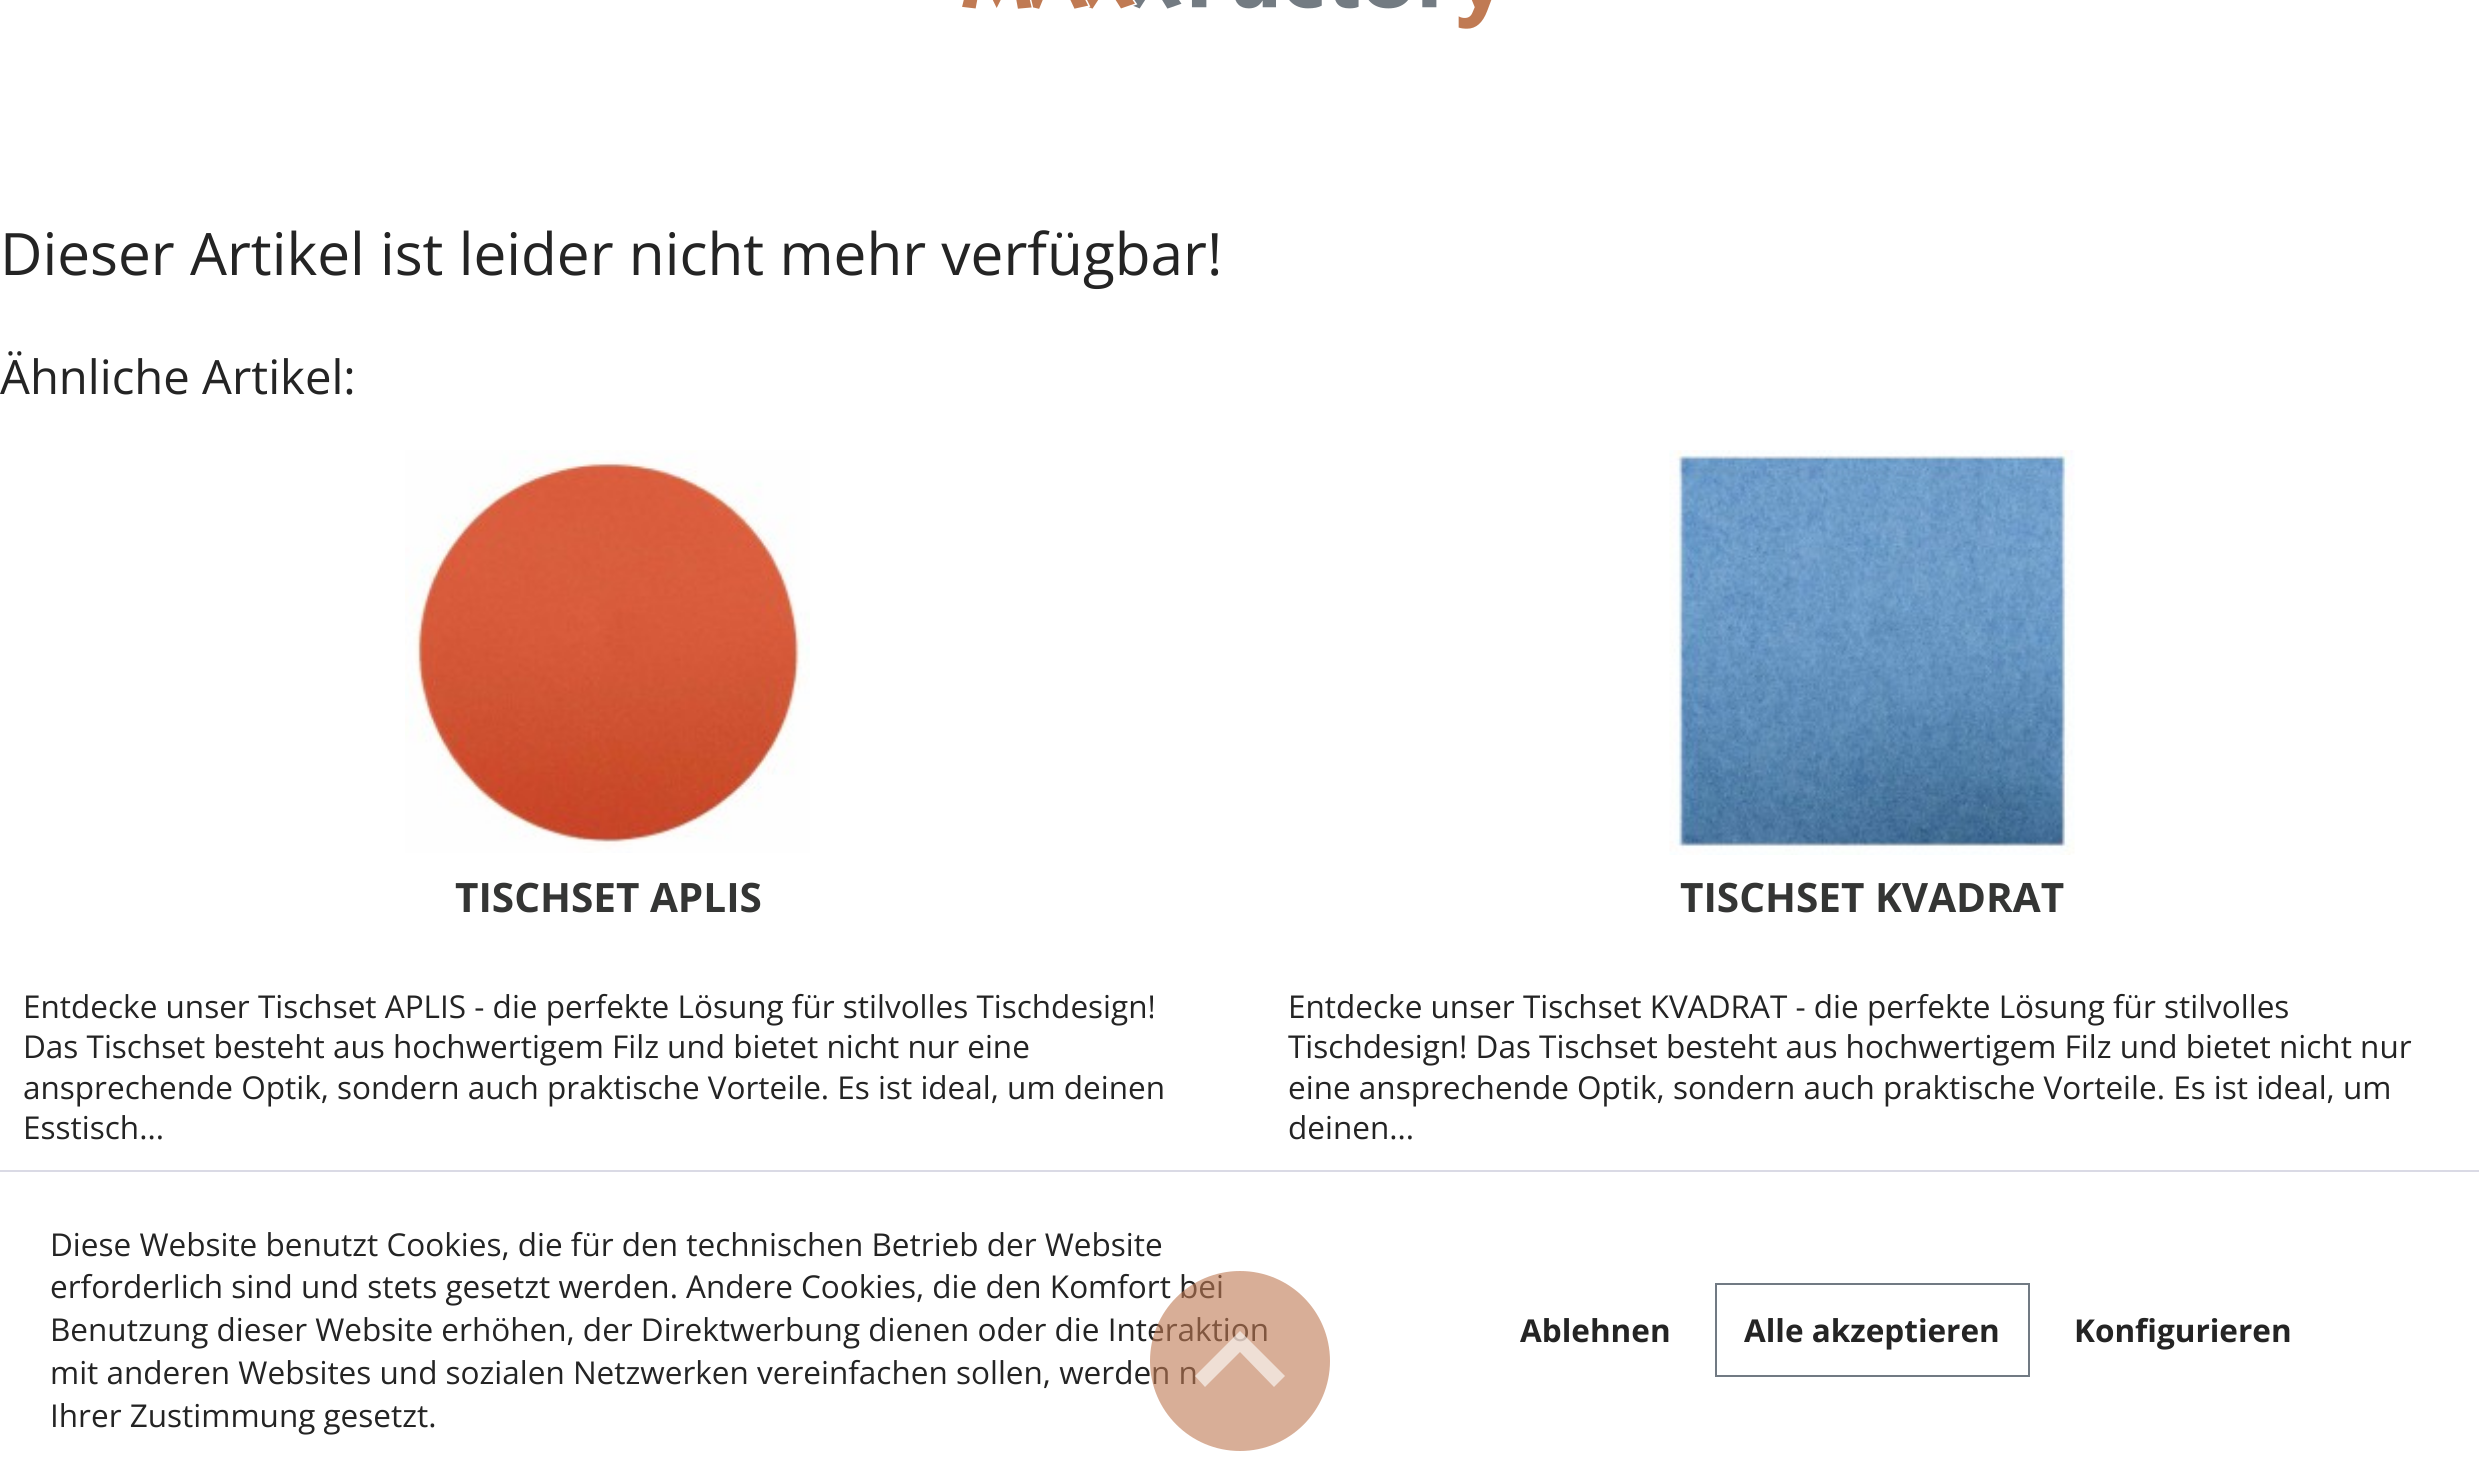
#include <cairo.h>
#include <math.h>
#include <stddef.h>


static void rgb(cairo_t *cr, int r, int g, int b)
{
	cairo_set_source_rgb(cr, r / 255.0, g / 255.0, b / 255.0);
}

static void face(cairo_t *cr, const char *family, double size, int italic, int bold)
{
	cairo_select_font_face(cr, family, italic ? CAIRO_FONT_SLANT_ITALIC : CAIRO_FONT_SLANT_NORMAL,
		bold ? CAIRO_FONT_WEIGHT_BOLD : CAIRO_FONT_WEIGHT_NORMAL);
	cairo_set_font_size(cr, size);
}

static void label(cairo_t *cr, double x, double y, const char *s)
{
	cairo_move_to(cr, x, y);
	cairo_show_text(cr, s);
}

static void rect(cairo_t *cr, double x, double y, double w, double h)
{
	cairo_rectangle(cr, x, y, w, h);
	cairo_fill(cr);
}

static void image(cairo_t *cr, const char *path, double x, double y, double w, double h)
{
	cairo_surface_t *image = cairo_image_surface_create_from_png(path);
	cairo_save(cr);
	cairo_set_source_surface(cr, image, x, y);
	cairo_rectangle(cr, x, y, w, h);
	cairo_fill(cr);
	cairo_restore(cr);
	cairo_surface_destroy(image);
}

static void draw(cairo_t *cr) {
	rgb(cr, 255, 255, 255);
	cairo_paint(cr);
	image(cr, "image0.png", 962, 0, 530, 29);
	face(cr, "Open Sans", 58.5, 0, 0);
	rgb(cr, 36, 36, 36);
	label(cr, 0, 275, "Dieser Artikel ist leider nicht mehr verfügbar!");
	face(cr, "Open Sans", 47.25, 0, 0);
	label(cr, 0, 394, "Ähnliche Artikel:");
	image(cr, "image1.png", 405, 450, 405, 403);
	face(cr, "Open Sans", 40.5, 0, 1);
	rgb(cr, 52, 53, 52);
	label(cr, 455, 912, "TISCHSET APLIS");
	face(cr, "Open Sans", 31.5, 0, 0);
	rgb(cr, 36, 36, 36);
	label(cr, 23, 1018, "Entdecke unser Tischset APLIS - die perfekte Lösung für stilvolles Tischdesign!");
	label(cr, 23, 1058, "Das Tischset besteht aus hochwertigem Filz und bietet nicht nur eine");
	label(cr, 23, 1099, "ansprechende Optik, sondern auch praktische Vorteile. Es ist ideal, um deinen");
	label(cr, 23, 1139, "Esstisch...");
	image(cr, "image2.png", 1669, 450, 406, 405);
	face(cr, "Open Sans", 40.5, 0, 1);
	rgb(cr, 52, 53, 52);
	label(cr, 1680, 912, "TISCHSET KVADRAT");
	face(cr, "Open Sans", 31.5, 0, 0);
	rgb(cr, 36, 36, 36);
	label(cr, 1288, 1018, "Entdecke unser Tischset KVADRAT - die perfekte Lösung für stilvolles");
	label(cr, 1288, 1058, "Tischdesign! Das Tischset besteht aus hochwertigem Filz und bietet nicht nur");
	label(cr, 1288, 1099, "eine ansprechende Optik, sondern auch praktische Vorteile. Es ist ideal, um");
	label(cr, 1288, 1139, "deinen...");
	label(cr, 50, 1298, "erforderlich sind und stets gesetzt werden. Andere Cookies, die den Komfort bei");
	label(cr, 50, 1341, "Benutzung dieser Website erhöhen, der Direktwerbung dienen oder die Interaktion");
	label(cr, 50, 1384, "mit anderen Websites und sozialen Netzwerken vereinfachen sollen, werden n");
	cairo_set_source_rgba(cr, 0.745, 0.475, 0.322, 0.6);
	cairo_new_path(cr);
	cairo_arc(cr, 1240, 1361, 90, 0, 2 * M_PI);
	cairo_fill(cr);
	cairo_set_source_rgba(cr, 1, 1, 1, 0.6);
	cairo_new_path(cr);
	cairo_move_to(cr, 1240, 1331);
	cairo_line_to(cr, 1195, 1376);
	cairo_line_to(cr, 1205, 1387);
	cairo_line_to(cr, 1240, 1352);
	cairo_line_to(cr, 1274, 1387);
	cairo_line_to(cr, 1285, 1376);
	cairo_close_path(cr);
	cairo_fill(cr);
	rgb(cr, 218, 218, 229);
	rect(cr, 0, 1170, 2479, 2);
	rgb(cr, 36, 36, 36);
	label(cr, 50, 1256, "Diese Website benutzt Cookies, die für den technischen Betrieb der Website");
	label(cr, 50, 1427, "Ihrer Zustimmung gesetzt.");
	face(cr, "Open Sans", 31.5, 0, 1);
	label(cr, 1520, 1342, "Ablehnen");
	cairo_rectangle(cr, 1716, 1284, 313, 92);
	rgb(cr, 113, 122, 131);
	cairo_stroke(cr);
	rgb(cr, 36, 36, 36);
	label(cr, 1744, 1342, "Alle akzeptieren");
	label(cr, 2074, 1342, "Konfigurieren");
}

int main(void) {
	cairo_surface_t *surface = cairo_image_surface_create(CAIRO_FORMAT_RGB24, 2479, 1484);
	cairo_t *cr = cairo_create(surface);
	cairo_font_options_t *options = cairo_font_options_create();
	cairo_font_options_set_hint_metrics(options, CAIRO_HINT_METRICS_OFF);
	cairo_font_options_set_hint_style(options, CAIRO_HINT_STYLE_NONE);
	cairo_set_font_options(cr, options);
	cairo_set_miter_limit(cr, 4);
	draw(cr);
	cairo_surface_write_to_png(surface, "render.png");
	cairo_font_options_destroy(options);
	cairo_destroy(cr);
	cairo_surface_destroy(surface);
	return 0;
}
